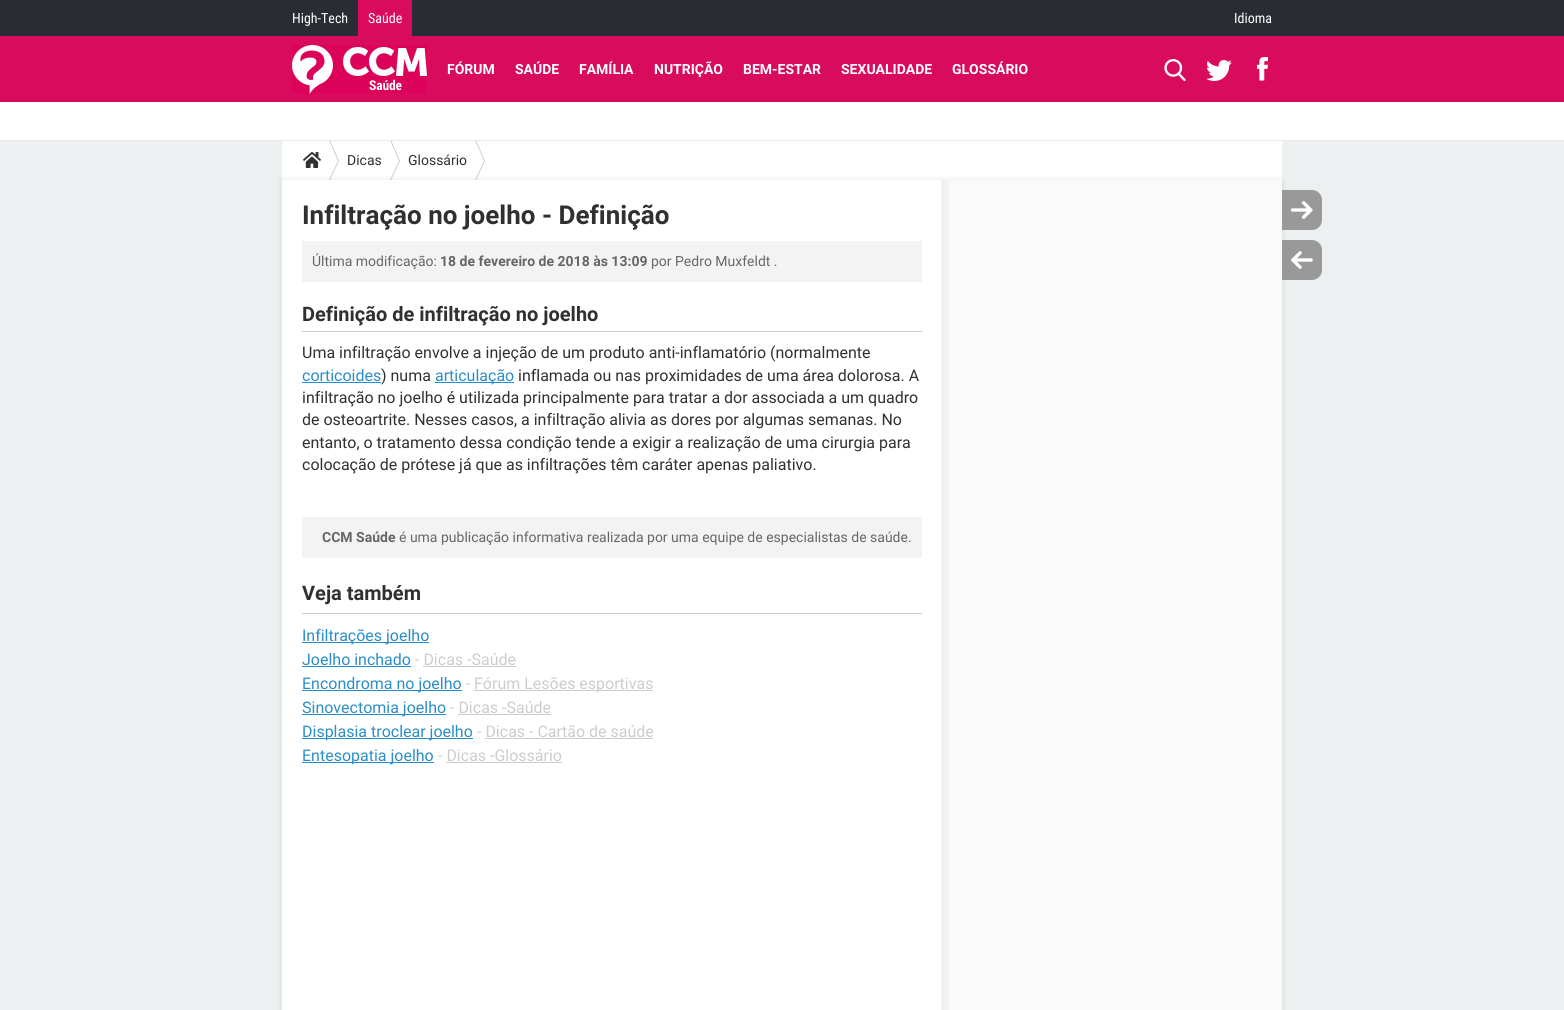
#include <cairo.h>
#include <math.h>
#include <stddef.h>


static void rgb(cairo_t *cr, int r, int g, int b)
{
	cairo_set_source_rgb(cr, r / 255.0, g / 255.0, b / 255.0);
}

static void face(cairo_t *cr, const char *family, double size, int italic, int bold)
{
	cairo_select_font_face(cr, family, italic ? CAIRO_FONT_SLANT_ITALIC : CAIRO_FONT_SLANT_NORMAL,
		bold ? CAIRO_FONT_WEIGHT_BOLD : CAIRO_FONT_WEIGHT_NORMAL);
	cairo_set_font_size(cr, size);
}

static void label(cairo_t *cr, double x, double y, const char *s)
{
	cairo_move_to(cr, x, y);
	cairo_show_text(cr, s);
}

static void rect(cairo_t *cr, double x, double y, double w, double h)
{
	cairo_rectangle(cr, x, y, w, h);
	cairo_fill(cr);
}

static void rrect(cairo_t *cr, double x, double y, double w, double h, double r)
{
	cairo_new_sub_path(cr);
	cairo_arc(cr, x + w - r, y + h - r, r, 0, M_PI / 2);
	cairo_arc(cr, x + r, y + h - r, r, M_PI / 2, M_PI);
	cairo_arc(cr, x + r, y + r, r, M_PI, 1.5 * M_PI);
	cairo_arc(cr, x + w - r, y + r, r, 1.5 * M_PI, 2 * M_PI);
	cairo_close_path(cr);
}

static void soft_shadow(cairo_t *cr, double x, double y, double w, double h, double r, double blur, double alpha)
{
	cairo_push_group_with_content(cr, CAIRO_CONTENT_ALPHA);
	cairo_set_operator(cr, CAIRO_OPERATOR_SOURCE);
	for (int i = 15; i >= -15 && fmin(w, h) + blur * i / 3 > 0; i -= 2) {
		double e = blur * i / 6;
		cairo_set_source_rgba(cr, 0, 0, 0, alpha * erfc((i - 1) / 8.5) / 2);
		rrect(cr, x - e, y - e, w + 2 * e, h + 2 * e, fmax(0, fmin(r + e + blur * .6, fmin(w, h) / 2 + e)));
		cairo_fill(cr);
	}
	cairo_pattern_t *soft = cairo_pop_group(cr);
	cairo_mask(cr, soft);
	cairo_pattern_destroy(soft);
}

static void image(cairo_t *cr, const char *path, double x, double y, double w, double h)
{
	cairo_surface_t *image = cairo_image_surface_create_from_png(path);
	cairo_save(cr);
	cairo_set_source_surface(cr, image, x, y);
	cairo_rectangle(cr, x, y, w, h);
	cairo_fill(cr);
	cairo_restore(cr);
	cairo_surface_destroy(image);
}

static void draw(cairo_t *cr) {
	cairo_pattern_t *gradient;
	rgb(cr, 237, 240, 240);
	cairo_paint(cr);
	rgb(cr, 255, 255, 255);
	rect(cr, 282, 141, 1000, 39);
	rgb(cr, 201, 201, 201);
	cairo_set_fill_rule(cr, CAIRO_FILL_RULE_EVEN_ODD);
	cairo_new_path(cr);
	cairo_move_to(cr, 329, 140);
	cairo_line_to(cr, 330, 140);
	cairo_line_to(cr, 339, 161);
	cairo_line_to(cr, 330, 180);
	cairo_line_to(cr, 329, 180);
	cairo_line_to(cr, 338, 161);
	cairo_close_path(cr);
	cairo_fill(cr);
	cairo_new_path(cr);
	cairo_move_to(cr, 390, 140);
	cairo_line_to(cr, 391, 140);
	cairo_line_to(cr, 400, 161);
	cairo_line_to(cr, 391, 180);
	cairo_line_to(cr, 390, 180);
	cairo_line_to(cr, 399, 161);
	cairo_close_path(cr);
	cairo_fill(cr);
	cairo_new_path(cr);
	cairo_move_to(cr, 475, 140);
	cairo_line_to(cr, 476, 140);
	cairo_line_to(cr, 485, 161);
	cairo_line_to(cr, 476, 180);
	cairo_line_to(cr, 475, 180);
	cairo_line_to(cr, 484, 161);
	cairo_close_path(cr);
	cairo_fill(cr);
	rgb(cr, 233, 233, 233);
	rect(cr, 0, 140, 1564, 1);
	rgb(cr, 255, 255, 255);
	rect(cr, 0, 102, 1564, 38);
	rgb(cr, 41, 45, 51);
	rect(cr, 0, 0, 1564, 36);
	face(cr, "Roboto Condensed", 14, 0, 0);
	rgb(cr, 255, 255, 255);
	label(cr, 292, 23, "High-Tech");
	rgb(cr, 217, 11, 93);
	rect(cr, 358, 0, 54, 36);
	rgb(cr, 255, 255, 255);
	label(cr, 368, 23, "Saúde");
	label(cr, 1234, 23, "Idioma");
	rgb(cr, 217, 11, 93);
	rect(cr, 0, 36, 1564, 66);
	image(cr, "image0.png", 292, 45, 135, 49);
	face(cr, "Roboto", 14, 0, 1);
	rgb(cr, 255, 255, 255);
	label(cr, 447, 74, "FÓRUM");
	label(cr, 515, 74, "SAÚDE");
	label(cr, 579, 74, "FAMÍLIA");
	label(cr, 654, 74, "NUTRIÇÃO");
	label(cr, 743, 74, "BEM-ESTAR");
	label(cr, 841, 74, "SEXUALIDADE");
	label(cr, 952, 74, "GLOSSÁRIO");
	image(cr, "image1.png", 1164, 59, 22, 22);
	image(cr, "image2.png", 1206, 60, 26, 21);
	image(cr, "image3.png", 1257, 57, 11, 24);
	image(cr, "image4.png", 303, 152, 18, 16);
	face(cr, "Roboto", 14, 0, 0);
	rgb(cr, 48, 48, 48);
	label(cr, 347, 165, "Dicas");
	label(cr, 408, 165, "Glossário");
	rgb(cr, 0, 0, 0);
	soft_shadow(cr, 282, 180, 1000, 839, 0, 3, 0.1);
	rgb(cr, 255, 255, 255);
	rect(cr, 282, 180, 660, 830);
	face(cr, "Roboto", 26, 0, 1);
	rgb(cr, 48, 48, 48);
	label(cr, 302, 224, "Infiltração no joelho - Definição");
	rgb(cr, 243, 243, 243);
	rect(cr, 302, 241, 620, 41);
	face(cr, "Roboto", 14, 0, 0);
	rgb(cr, 102, 102, 102);
	label(cr, 312, 266, "Última modificação:");
	face(cr, "Roboto", 14, 0, 1);
	label(cr, 440, 266, "18 de fevereiro de 2018 às 13:09");
	face(cr, "Roboto", 14, 0, 0);
	label(cr, 651, 266, "por Pedro Muxfeldt .");
	rgb(cr, 204, 204, 204);
	rect(cr, 302, 331, 620, 1);
	face(cr, "Roboto", 20, 0, 1);
	rgb(cr, 48, 48, 48);
	label(cr, 302, 321, "Definição de infiltração no joelho");
	face(cr, "Roboto", 16, 0, 0);
	label(cr, 302, 358, "Uma infiltração envolve a injeção de um produto anti-inflamatório (normalmente");
	rgb(cr, 41, 142, 200);
	label(cr, 302, 381, "corticoides");
	rect(cr, 302, 382, 79, 1);
	rgb(cr, 48, 48, 48);
	label(cr, 381, 381, ") numa");
	rgb(cr, 41, 142, 200);
	rect(cr, 435, 382, 79, 1);
	label(cr, 435, 381, "articulação");
	rgb(cr, 48, 48, 48);
	label(cr, 518, 381, "inflamada ou nas proximidades de uma área dolorosa. A");
	label(cr, 302, 403, "infiltração no joelho é utilizada principalmente para tratar a dor associada a um quadro");
	label(cr, 302, 425, "de osteoartrite. Nesses casos, a infiltração alivia as dores por algumas semanas. No");
	label(cr, 302, 448, "entanto, o tratamento dessa condição tende a exigir a realização de uma cirurgia para");
	label(cr, 302, 470, "colocação de prótese já que as infiltrações têm caráter apenas paliativo.");
	rgb(cr, 243, 243, 243);
	rect(cr, 302, 517, 620, 41);
	face(cr, "Roboto", 14, 0, 1);
	rgb(cr, 102, 102, 102);
	label(cr, 322, 542, "CCM Saúde");
	face(cr, "Roboto", 14, 0, 0);
	label(cr, 399, 542, "é uma publicação informativa realizada por uma equipe de especialistas de saúde.");
	rgb(cr, 204, 204, 204);
	rect(cr, 302, 613, 620, 1);
	face(cr, "Roboto", 20, 0, 1);
	rgb(cr, 48, 48, 48);
	label(cr, 302, 600, "Veja também");
	rgb(cr, 41, 142, 200);
	rect(cr, 302, 642, 127, 1);
	face(cr, "Roboto", 16, 0, 0);
	label(cr, 302, 641, "Infiltrações joelho");
	label(cr, 302, 665, "Joelho inchado");
	rect(cr, 302, 666, 109, 1);
	rgb(cr, 204, 204, 204);
	label(cr, 415, 665, "- Dicas -Saúde");
	rect(cr, 423, 666, 93, 1);
	rgb(cr, 41, 142, 200);
	rect(cr, 302, 690, 160, 1);
	label(cr, 302, 689, "Encondroma no joelho");
	rgb(cr, 204, 204, 204);
	label(cr, 466, 689, "-");
	rect(cr, 474, 690, 179, 1);
	label(cr, 474, 689, "Fórum Lesões esportivas");
	rgb(cr, 41, 142, 200);
	rect(cr, 302, 714, 144, 1);
	label(cr, 302, 713, "Sinovectomia joelho");
	rgb(cr, 204, 204, 204);
	label(cr, 450, 713, "- Dicas -Saúde");
	rect(cr, 458, 714, 93, 1);
	rgb(cr, 41, 142, 200);
	rect(cr, 302, 738, 171, 1);
	label(cr, 302, 737, "Displasia troclear joelho");
	rgb(cr, 204, 204, 204);
	label(cr, 477, 737, "- Dicas - Cartão de saúde");
	rect(cr, 485, 738, 168, 1);
	rgb(cr, 41, 142, 200);
	rect(cr, 302, 762, 132, 1);
	label(cr, 302, 761, "Entesopatia joelho");
	rgb(cr, 204, 204, 204);
	label(cr, 438, 761, "- Dicas -Glossário");
	rect(cr, 446, 762, 116, 1);
	rgb(cr, 250, 250, 250);
	rect(cr, 942, 180, 340, 830);
	gradient = cairo_pattern_create_linear(941, 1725, 956, 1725);
	cairo_pattern_add_color_stop_rgba(gradient, 0, 0, 0, 0, 0.05);
	cairo_pattern_add_color_stop_rgba(gradient, 1, 0, 0, 0, 0);
	cairo_set_source(cr, gradient);
	cairo_pattern_destroy(gradient);
	rect(cr, 941, 180, 9, 830);
	rgb(cr, 153, 153, 153);
	cairo_new_path(cr);
	cairo_move_to(cr, 1282, 190);
	cairo_line_to(cr, 1312, 190);
	cairo_curve_to(cr, 1317.5, 190, 1322, 194.5, 1322, 200);
	cairo_line_to(cr, 1322, 220);
	cairo_curve_to(cr, 1322, 225.5, 1317.5, 230, 1312, 230);
	cairo_line_to(cr, 1282, 230);
	cairo_close_path(cr);
	cairo_fill(cr);
	image(cr, "image5.png", 1291, 201, 22, 18);
	cairo_new_path(cr);
	cairo_move_to(cr, 1282, 240);
	cairo_line_to(cr, 1312, 240);
	cairo_curve_to(cr, 1317.5, 240, 1322, 244.5, 1322, 250);
	cairo_line_to(cr, 1322, 270);
	cairo_curve_to(cr, 1322, 275.5, 1317.5, 280, 1312, 280);
	cairo_line_to(cr, 1282, 280);
	cairo_close_path(cr);
	cairo_fill(cr);
	image(cr, "image6.png", 1291, 251, 22, 18);
}

int main(void) {
	cairo_surface_t *surface = cairo_image_surface_create(CAIRO_FORMAT_RGB24, 1564, 1010);
	cairo_t *cr = cairo_create(surface);
	cairo_font_options_t *options = cairo_font_options_create();
	cairo_font_options_set_hint_metrics(options, CAIRO_HINT_METRICS_OFF);
	cairo_font_options_set_hint_style(options, CAIRO_HINT_STYLE_NONE);
	cairo_set_font_options(cr, options);
	cairo_set_miter_limit(cr, 4);
	draw(cr);
	cairo_surface_write_to_png(surface, "render.png");
	cairo_font_options_destroy(options);
	cairo_destroy(cr);
	cairo_surface_destroy(surface);
	return 0;
}
